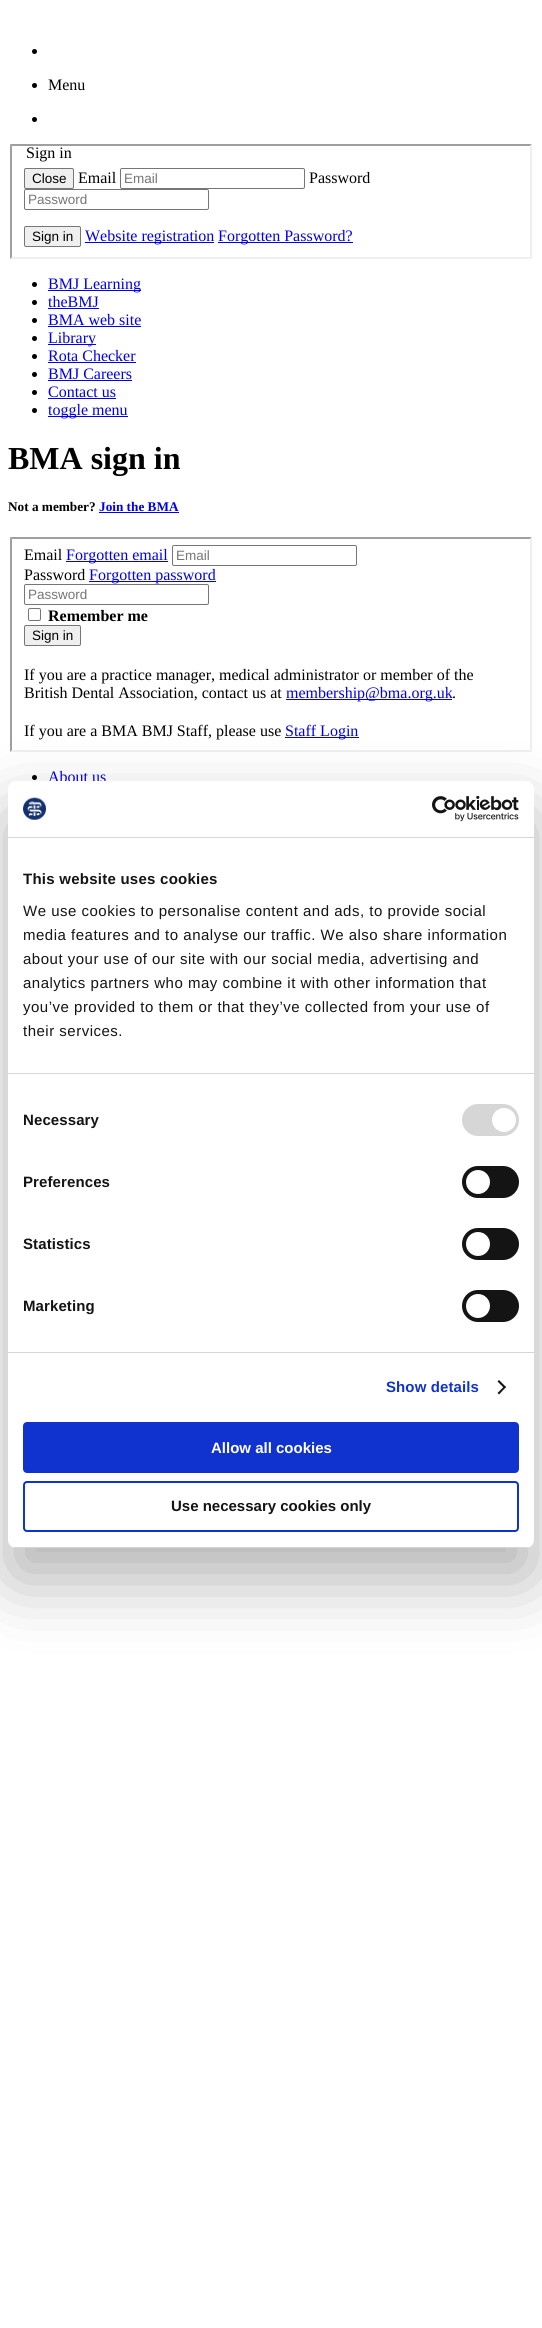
#include <cairo.h>
#include <math.h>
#include <stddef.h>


static void rgb(cairo_t *cr, int r, int g, int b)
{
	cairo_set_source_rgb(cr, r / 255.0, g / 255.0, b / 255.0);
}

static void face(cairo_t *cr, const char *family, double size, int italic, int bold)
{
	cairo_select_font_face(cr, family, italic ? CAIRO_FONT_SLANT_ITALIC : CAIRO_FONT_SLANT_NORMAL,
		bold ? CAIRO_FONT_WEIGHT_BOLD : CAIRO_FONT_WEIGHT_NORMAL);
	cairo_set_font_size(cr, size);
}

static void label(cairo_t *cr, double x, double y, const char *s)
{
	cairo_move_to(cr, x, y);
	cairo_show_text(cr, s);
}

static void tracked(cairo_t *cr, double x, double y, const char *s, double letter, double word)
{
	cairo_move_to(cr, x, y);
	while (*s) {
		char ch[5] = {0};
		int n = 0;
		do ch[n++] = *s++; while ((*s & 0xC0) == 0x80);
		cairo_show_text(cr, ch);
		cairo_rel_move_to(cr, letter + word * (*ch == ' '), 0);
	}
}

static void rect(cairo_t *cr, double x, double y, double w, double h)
{
	cairo_rectangle(cr, x, y, w, h);
	cairo_fill(cr);
}

static void rrect(cairo_t *cr, double x, double y, double w, double h, double r)
{
	cairo_new_sub_path(cr);
	cairo_arc(cr, x + w - r, y + h - r, r, 0, M_PI / 2);
	cairo_arc(cr, x + r, y + h - r, r, M_PI / 2, M_PI);
	cairo_arc(cr, x + r, y + r, r, M_PI, 1.5 * M_PI);
	cairo_arc(cr, x + w - r, y + r, r, 1.5 * M_PI, 2 * M_PI);
	cairo_close_path(cr);
}

static void soft_shadow(cairo_t *cr, double x, double y, double w, double h, double r, double blur, double alpha)
{
	cairo_push_group_with_content(cr, CAIRO_CONTENT_ALPHA);
	cairo_set_operator(cr, CAIRO_OPERATOR_SOURCE);
	for (int i = 15; i >= -15 && fmin(w, h) + blur * i / 3 > 0; i -= 2) {
		double e = blur * i / 6;
		cairo_set_source_rgba(cr, 0, 0, 0, alpha * erfc((i - 1) / 8.5) / 2);
		rrect(cr, x - e, y - e, w + 2 * e, h + 2 * e, fmax(0, fmin(r + e + blur * .6, fmin(w, h) / 2 + e)));
		cairo_fill(cr);
	}
	cairo_pattern_t *soft = cairo_pop_group(cr);
	cairo_mask(cr, soft);
	cairo_pattern_destroy(soft);
}

static void image(cairo_t *cr, const char *path, double x, double y, double w, double h)
{
	cairo_surface_t *image = cairo_image_surface_create_from_png(path);
	cairo_save(cr);
	cairo_set_source_surface(cr, image, x, y);
	cairo_rectangle(cr, x, y, w, h);
	cairo_fill(cr);
	cairo_restore(cr);
	cairo_surface_destroy(image);
}

static void draw(cairo_t *cr) {
	rgb(cr, 255, 255, 255);
	cairo_paint(cr);
	rgb(cr, 0, 0, 0);
	cairo_arc(cr, 34.5, 51.5, 2.5, 0, 2 * M_PI);
	cairo_fill(cr);
	cairo_arc(cr, 34.5, 85.5, 2.5, 0, 2 * M_PI);
	cairo_fill(cr);
	face(cr, "Liberation Serif", 16, 0, 0);
	label(cr, 48, 90, "Menu");
	cairo_new_path(cr);
	cairo_arc(cr, 34.5, 119.5, 2.5, 0, 2 * M_PI);
	cairo_fill(cr);
	rgb(cr, 159, 159, 159);
	cairo_new_path(cr);
	cairo_move_to(cr, 10, 144);
	cairo_line_to(cr, 532, 144);
	cairo_line_to(cr, 530, 146);
	cairo_line_to(cr, 12, 146);
	cairo_close_path(cr);
	cairo_fill(cr);
	rgb(cr, 239, 239, 239);
	cairo_new_path(cr);
	cairo_move_to(cr, 532, 144);
	cairo_line_to(cr, 532, 259);
	cairo_line_to(cr, 530, 257);
	cairo_line_to(cr, 530, 146);
	cairo_close_path(cr);
	cairo_fill(cr);
	cairo_new_path(cr);
	cairo_move_to(cr, 532, 259);
	cairo_line_to(cr, 10, 259);
	cairo_line_to(cr, 12, 257);
	cairo_line_to(cr, 530, 257);
	cairo_close_path(cr);
	cairo_fill(cr);
	rgb(cr, 159, 159, 159);
	cairo_new_path(cr);
	cairo_move_to(cr, 10, 259);
	cairo_line_to(cr, 10, 144);
	cairo_line_to(cr, 12, 146);
	cairo_line_to(cr, 12, 257);
	cairo_close_path(cr);
	cairo_fill(cr);
	rgb(cr, 0, 0, 0);
	label(cr, 26, 158, "Sign in");
	rgb(cr, 239, 239, 239);
	rrect(cr, 24.5, 168.5, 49, 20, 1.5);
	cairo_fill_preserve(cr);
	rgb(cr, 118, 118, 118);
	cairo_set_line_width(cr, 1);
	cairo_stroke(cr);
	face(cr, "Liberation Sans", 13.5, 0, 0);
	rgb(cr, 0, 0, 0);
	label(cr, 32, 183, "Close");
	face(cr, "Liberation Serif", 16, 0, 0);
	label(cr, 78, 183, "Email");
	rrect(cr, 120.5, 168.5, 184, 20, 1.5);
	rgb(cr, 118, 118, 118);
	cairo_stroke(cr);
	face(cr, "Liberation Sans", 13.5, 0, 0);
	rgb(cr, 117, 117, 117);
	label(cr, 124, 183, "Email");
	face(cr, "Liberation Serif", 16, 0, 0);
	rgb(cr, 0, 0, 0);
	label(cr, 309, 183, "Password");
	rrect(cr, 24.5, 189.5, 184, 20, 1.5);
	rgb(cr, 118, 118, 118);
	cairo_stroke(cr);
	face(cr, "Liberation Sans", 13.5, 0, 0);
	rgb(cr, 117, 117, 117);
	label(cr, 28, 204, "Password");
	rgb(cr, 239, 239, 239);
	rrect(cr, 24.5, 226.5, 56, 20, 1.5);
	cairo_fill_preserve(cr);
	rgb(cr, 118, 118, 118);
	cairo_stroke(cr);
	rgb(cr, 0, 0, 0);
	label(cr, 32, 241, "Sign in");
	rgb(cr, 0, 0, 238);
	rect(cr, 85, 242, 129, 1);
	face(cr, "Liberation Serif", 16, 0, 0);
	label(cr, 85, 241, "Website registration");
	rect(cr, 218, 242, 135, 1);
	label(cr, 218, 241, "Forgotten Password?");
	rgb(cr, 0, 0, 0);
	cairo_new_path(cr);
	cairo_arc(cr, 34.5, 284.5, 2.5, 0, 2 * M_PI);
	cairo_fill(cr);
	rgb(cr, 0, 0, 238);
	rect(cr, 48, 290, 93, 1);
	label(cr, 48, 289, "BMJ Learning");
	rgb(cr, 0, 0, 0);
	cairo_new_path(cr);
	cairo_arc(cr, 34.5, 302.5, 2.5, 0, 2 * M_PI);
	cairo_fill(cr);
	rgb(cr, 0, 0, 238);
	label(cr, 48, 307, "theBMJ");
	rect(cr, 48, 308, 51, 1);
	rgb(cr, 0, 0, 0);
	cairo_new_path(cr);
	cairo_arc(cr, 34.5, 320.5, 2.5, 0, 2 * M_PI);
	cairo_fill(cr);
	rgb(cr, 0, 0, 238);
	label(cr, 48, 325, "BMA web site");
	rect(cr, 48, 326, 93, 1);
	rgb(cr, 0, 0, 0);
	cairo_new_path(cr);
	cairo_arc(cr, 34.5, 338.5, 2.5, 0, 2 * M_PI);
	cairo_fill(cr);
	rgb(cr, 0, 0, 238);
	rect(cr, 48, 344, 48, 1);
	label(cr, 48, 343, "Library");
	rgb(cr, 0, 0, 0);
	cairo_new_path(cr);
	cairo_arc(cr, 34.5, 356.5, 2.5, 0, 2 * M_PI);
	cairo_fill(cr);
	rgb(cr, 0, 0, 238);
	label(cr, 48, 361, "Rota Checker");
	rect(cr, 48, 362, 88, 1);
	rgb(cr, 0, 0, 0);
	cairo_new_path(cr);
	cairo_arc(cr, 34.5, 374.5, 2.5, 0, 2 * M_PI);
	cairo_fill(cr);
	rgb(cr, 0, 0, 238);
	label(cr, 48, 379, "BMJ Careers");
	rect(cr, 48, 380, 84, 1);
	rgb(cr, 0, 0, 0);
	cairo_new_path(cr);
	cairo_arc(cr, 34.5, 392.5, 2.5, 0, 2 * M_PI);
	cairo_fill(cr);
	rgb(cr, 0, 0, 238);
	label(cr, 48, 397, "Contact us");
	rect(cr, 48, 398, 68, 1);
	rgb(cr, 0, 0, 0);
	cairo_new_path(cr);
	cairo_arc(cr, 34.5, 410.5, 2.5, 0, 2 * M_PI);
	cairo_fill(cr);
	rgb(cr, 0, 0, 238);
	rect(cr, 48, 416, 80, 1);
	label(cr, 48, 415, "toggle menu");
	face(cr, "Liberation Serif", 32, 0, 1);
	rgb(cr, 0, 0, 0);
	label(cr, 8, 469, "BMA sign in");
	face(cr, "Liberation Serif", 13.25, 0, 1);
	label(cr, 8, 511, "Not a member?");
	rgb(cr, 0, 0, 238);
	label(cr, 99, 511, "Join the BMA");
	rect(cr, 99, 512, 80, 1);
	rgb(cr, 159, 159, 159);
	cairo_new_path(cr);
	cairo_move_to(cr, 10, 537);
	cairo_line_to(cr, 532, 537);
	cairo_line_to(cr, 530, 539);
	cairo_line_to(cr, 12, 539);
	cairo_close_path(cr);
	cairo_fill(cr);
	rgb(cr, 239, 239, 239);
	cairo_new_path(cr);
	cairo_move_to(cr, 532, 537);
	cairo_line_to(cr, 532, 752);
	cairo_line_to(cr, 530, 750);
	cairo_line_to(cr, 530, 539);
	cairo_close_path(cr);
	cairo_fill(cr);
	cairo_new_path(cr);
	cairo_move_to(cr, 532, 752);
	cairo_line_to(cr, 10, 752);
	cairo_line_to(cr, 12, 750);
	cairo_line_to(cr, 530, 750);
	cairo_close_path(cr);
	cairo_fill(cr);
	rgb(cr, 159, 159, 159);
	cairo_new_path(cr);
	cairo_move_to(cr, 10, 752);
	cairo_line_to(cr, 10, 537);
	cairo_line_to(cr, 12, 539);
	cairo_line_to(cr, 12, 750);
	cairo_close_path(cr);
	cairo_fill(cr);
	face(cr, "Liberation Serif", 16, 0, 0);
	rgb(cr, 0, 0, 0);
	label(cr, 24, 560, "Email");
	rgb(cr, 0, 0, 238);
	rect(cr, 66, 561, 102, 1);
	label(cr, 66, 560, "Forgotten email");
	rrect(cr, 172.5, 545.5, 184, 20, 1.5);
	rgb(cr, 118, 118, 118);
	cairo_stroke(cr);
	face(cr, "Liberation Sans", 13.5, 0, 0);
	rgb(cr, 117, 117, 117);
	label(cr, 176, 560, "Email");
	face(cr, "Liberation Serif", 16, 0, 0);
	rgb(cr, 0, 0, 0);
	label(cr, 24, 580, "Password");
	rgb(cr, 0, 0, 238);
	rect(cr, 89, 581, 127, 1);
	label(cr, 89, 580, "Forgotten password");
	rrect(cr, 24.5, 584.5, 184, 20, 1.5);
	rgb(cr, 118, 118, 118);
	cairo_stroke(cr);
	face(cr, "Liberation Sans", 13.5, 0, 0);
	rgb(cr, 117, 117, 117);
	label(cr, 28, 599, "Password");
	rrect(cr, 28.5, 608.5, 12, 12, 1.5);
	rgb(cr, 118, 118, 118);
	cairo_stroke(cr);
	face(cr, "Liberation Serif", 16, 0, 1);
	rgb(cr, 0, 0, 0);
	label(cr, 48, 621, "Remember me");
	rgb(cr, 239, 239, 239);
	rrect(cr, 24.5, 625.5, 56, 20, 1.5);
	cairo_fill_preserve(cr);
	rgb(cr, 118, 118, 118);
	cairo_stroke(cr);
	face(cr, "Liberation Sans", 13.5, 0, 0);
	rgb(cr, 0, 0, 0);
	label(cr, 32, 640, "Sign in");
	face(cr, "Liberation Serif", 16, 0, 0);
	label(cr, 24, 680, "If you are a practice manager, medical administrator or member of the");
	label(cr, 24, 698, "British Dental Association, contact us at");
	rgb(cr, 0, 0, 238);
	rect(cr, 286, 699, 166, 1);
	label(cr, 286, 698, "membership@bma.org.uk");
	rgb(cr, 0, 0, 0);
	label(cr, 452, 698, ".");
	label(cr, 24, 736, "If you are a BMA BMJ Staff, please use");
	rgb(cr, 0, 0, 238);
	rect(cr, 285, 737, 74, 1);
	label(cr, 285, 736, "Staff Login");
	rgb(cr, 0, 0, 0);
	cairo_new_path(cr);
	cairo_arc(cr, 34.5, 777.5, 2.5, 0, 2 * M_PI);
	cairo_fill(cr);
	rgb(cr, 0, 0, 238);
	label(cr, 48, 782, "About us");
	rgb(cr, 0, 0, 0);
	soft_shadow(cr, 8, 813, 526, 767, 8, 34, 0.3);
	rgb(cr, 255, 255, 255);
	rrect(cr, 8, 781, 526, 767, 8);
	cairo_fill(cr);
	rgb(cr, 214, 214, 214);
	rect(cr, 8, 837, 526, 1);
	image(cr, "image0.png", 23, 797, 23, 23);
	image(cr, "image1.png", 432, 796, 87, 26);
	rect(cr, 8, 1073, 526, 1);
	face(cr, "Liberation Sans", 15, 0, 1);
	rgb(cr, 20, 20, 20);
	tracked(cr, 23, 884, "This website uses cookies", 0.25, 0);
	face(cr, "Liberation Sans", 15, 0, 0);
	tracked(cr, 23, 916, "We use cookies to personalise content and ads, to provide social", 0.5, 0);
	tracked(cr, 23, 940, "media features and to analyse our traffic. We also share information", 0.5, 0);
	tracked(cr, 23, 964, "about your use of our site with our social media, advertising and", 0.5, 0);
	tracked(cr, 23, 988, "analytics partners who may combine it with other information that", 0.5, 0);
	tracked(cr, 23, 1012, "you’ve provided to them or that they’ve collected from your use of", 0.5, 0);
	tracked(cr, 23, 1036, "their services.", 0.5, 0);
	rgb(cr, 214, 214, 214);
	rect(cr, 8, 1352, 526, 1);
	face(cr, "Liberation Sans", 15, 0, 1);
	rgb(cr, 20, 20, 20);
	tracked(cr, 23, 1125, "Necessary", 0.1, 0);
	rgb(cr, 214, 214, 214);
	rrect(cr, 462, 1104, 57, 32, 16);
	cairo_fill(cr);
	rgb(cr, 255, 255, 255);
	cairo_arc(cr, 504, 1120, 12, 0, 2 * M_PI);
	cairo_fill(cr);
	rgb(cr, 20, 20, 20);
	tracked(cr, 23, 1187, "Preferences", 0.1, 0);
	rrect(cr, 462, 1166, 57, 32, 16);
	cairo_fill(cr);
	rgb(cr, 255, 255, 255);
	cairo_arc(cr, 478, 1182, 12, 0, 2 * M_PI);
	cairo_fill(cr);
	rgb(cr, 20, 20, 20);
	tracked(cr, 23, 1249, "Statistics", 0.1, 0);
	rrect(cr, 462, 1228, 57, 32, 16);
	cairo_fill(cr);
	rgb(cr, 255, 255, 255);
	cairo_arc(cr, 478, 1244, 12, 0, 2 * M_PI);
	cairo_fill(cr);
	rgb(cr, 20, 20, 20);
	tracked(cr, 23, 1311, "Marketing", 0.1, 0);
	rrect(cr, 462, 1290, 57, 32, 16);
	cairo_fill(cr);
	rgb(cr, 255, 255, 255);
	cairo_arc(cr, 478, 1306, 12, 0, 2 * M_PI);
	cairo_fill(cr);
	rgb(cr, 16, 50, 207);
	tracked(cr, 386, 1392, "Show details", 0.1, 0);
	rgb(cr, 20, 20, 20);
	cairo_new_path(cr);
	cairo_move_to(cr, 499, 1380);
	cairo_line_to(cr, 506, 1387);
	cairo_line_to(cr, 504.5, 1388.5);
	cairo_line_to(cr, 497.5, 1381.5);
	cairo_close_path(cr);
	cairo_fill(cr);
	cairo_new_path(cr);
	cairo_move_to(cr, 504.5, 1386);
	cairo_line_to(cr, 506, 1387);
	cairo_line_to(cr, 499, 1394.5);
	cairo_line_to(cr, 497.5, 1393);
	cairo_close_path(cr);
	cairo_fill(cr);
	cairo_save(cr);
	rrect(cr, 8, 781, 526, 767, 8);
	cairo_clip(cr);
	rgb(cr, 214, 214, 214);
	rect(cr, 8, 1547, 526, 1);
	cairo_restore(cr);
	rgb(cr, 16, 50, 207);
	rrect(cr, 24, 1423, 494, 49, 3);
	cairo_fill_preserve(cr);
	cairo_set_line_width(cr, 2);
	cairo_stroke(cr);
	rgb(cr, 255, 255, 255);
	label(cr, 211, 1453, "Allow all cookies");
	rrect(cr, 24, 1482, 494, 49, 3);
	rgb(cr, 16, 50, 207);
	cairo_stroke(cr);
	rgb(cr, 20, 20, 20);
	label(cr, 171, 1511, "Use necessary cookies only");
}

int main(void) {
	cairo_surface_t *surface = cairo_image_surface_create(CAIRO_FORMAT_RGB24, 542, 2328);
	cairo_t *cr = cairo_create(surface);
	cairo_font_options_t *options = cairo_font_options_create();
	cairo_font_options_set_hint_metrics(options, CAIRO_HINT_METRICS_OFF);
	cairo_font_options_set_hint_style(options, CAIRO_HINT_STYLE_NONE);
	cairo_set_font_options(cr, options);
	cairo_set_miter_limit(cr, 4);
	draw(cr);
	cairo_surface_write_to_png(surface, "render.png");
	cairo_font_options_destroy(options);
	cairo_destroy(cr);
	cairo_surface_destroy(surface);
	return 0;
}
